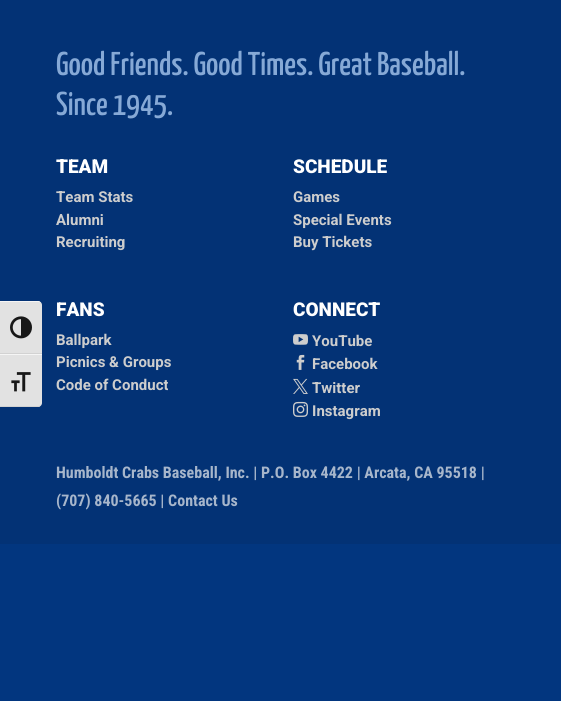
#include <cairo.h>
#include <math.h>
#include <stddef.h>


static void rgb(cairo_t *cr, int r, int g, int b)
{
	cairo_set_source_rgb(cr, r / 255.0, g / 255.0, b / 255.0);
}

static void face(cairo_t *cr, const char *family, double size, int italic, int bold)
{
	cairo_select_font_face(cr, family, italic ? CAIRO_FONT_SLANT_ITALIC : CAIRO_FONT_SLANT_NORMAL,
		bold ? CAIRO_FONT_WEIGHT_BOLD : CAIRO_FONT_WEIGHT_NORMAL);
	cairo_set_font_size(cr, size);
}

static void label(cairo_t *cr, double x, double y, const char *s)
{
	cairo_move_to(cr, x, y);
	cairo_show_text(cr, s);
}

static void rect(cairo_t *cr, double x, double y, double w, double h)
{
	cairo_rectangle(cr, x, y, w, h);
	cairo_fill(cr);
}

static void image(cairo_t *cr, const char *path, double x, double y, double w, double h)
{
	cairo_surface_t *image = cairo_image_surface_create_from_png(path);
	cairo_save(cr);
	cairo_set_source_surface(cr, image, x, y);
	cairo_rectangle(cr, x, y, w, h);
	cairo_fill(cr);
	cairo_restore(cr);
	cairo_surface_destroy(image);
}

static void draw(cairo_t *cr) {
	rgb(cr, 2, 54, 127);
	cairo_paint(cr);
	rgb(cr, 3, 50, 117);
	rect(cr, 0, 0, 561, 544);
	rgb(cr, 226, 226, 226);
	cairo_new_path(cr);
	cairo_move_to(cr, 0, 301);
	cairo_line_to(cr, 38, 301);
	cairo_curve_to(cr, 40, 301, 42, 303, 42, 305);
	cairo_line_to(cr, 42, 354);
	cairo_line_to(cr, 0, 354);
	cairo_close_path(cr);
	cairo_fill(cr);
	rgb(cr, 245, 245, 245);
	cairo_new_path(cr);
	cairo_move_to(cr, 0, 301);
	cairo_line_to(cr, 0, 302);
	cairo_line_to(cr, 38, 302);
	cairo_curve_to(cr, 40, 302, 42, 303, 42, 305);
	cairo_curve_to(cr, 42, 303, 40, 301, 38, 301);
	cairo_close_path(cr);
	cairo_fill(cr);
	rgb(cr, 210, 210, 210);
	rect(cr, 0, 353, 42, 1);
	image(cr, "image0.png", 10, 316, 22, 23);
	rgb(cr, 226, 226, 226);
	cairo_new_path(cr);
	cairo_move_to(cr, 0, 354);
	cairo_line_to(cr, 42, 354);
	cairo_line_to(cr, 42, 403);
	cairo_curve_to(cr, 42, 405, 40, 407, 38, 407);
	cairo_line_to(cr, 0, 407);
	cairo_close_path(cr);
	cairo_fill(cr);
	rgb(cr, 245, 245, 245);
	rect(cr, 0, 354, 42, 1);
	rgb(cr, 210, 210, 210);
	cairo_new_path(cr);
	cairo_move_to(cr, 0, 406);
	cairo_line_to(cr, 0, 407);
	cairo_line_to(cr, 38, 407);
	cairo_curve_to(cr, 40, 407, 42, 405, 42, 403);
	cairo_curve_to(cr, 42, 405, 40, 406, 38, 406);
	cairo_close_path(cr);
	cairo_fill(cr);
	image(cr, "image1.png", 11, 372, 20, 20);
	face(cr, "Yanone Kaffeesatz ExtraLight", 33, 0, 0);
	rgb(cr, 134, 169, 214);
	label(cr, 56, 75, "Good Friends. Good Times. Great Baseball.");
	label(cr, 56, 115, "Since 1945.");
	face(cr, "Roboto Black", 19, 0, 0);
	rgb(cr, 255, 255, 255);
	label(cr, 56, 173, "TEAM");
	face(cr, "Roboto", 15, 0, 1);
	rgb(cr, 205, 205, 205);
	label(cr, 56, 202, "Team Stats");
	label(cr, 56, 225, "Alumni");
	label(cr, 56, 247, "Recruiting");
	face(cr, "Roboto Black", 19, 0, 0);
	rgb(cr, 255, 255, 255);
	label(cr, 293, 173, "SCHEDULE");
	face(cr, "Roboto", 15, 0, 1);
	rgb(cr, 205, 205, 205);
	label(cr, 293, 202, "Games");
	label(cr, 293, 225, "Special Events");
	label(cr, 293, 247, "Buy Tickets");
	face(cr, "Roboto Black", 19, 0, 0);
	rgb(cr, 255, 255, 255);
	label(cr, 56, 316, "FANS");
	face(cr, "Roboto", 15, 0, 1);
	rgb(cr, 205, 205, 205);
	label(cr, 56, 345, "Ballpark");
	label(cr, 56, 367, "Picnics & Groups");
	label(cr, 56, 390, "Code of Conduct");
	face(cr, "Roboto Black", 19, 0, 0);
	rgb(cr, 255, 255, 255);
	label(cr, 293, 316, "CONNECT");
	image(cr, "image2.png", 293, 334, 15, 11);
	face(cr, "Roboto", 15, 0, 1);
	rgb(cr, 205, 205, 205);
	label(cr, 312, 346, "YouTube");
	image(cr, "image3.png", 296, 354, 9, 16);
	label(cr, 312, 369, "Facebook");
	image(cr, "image4.png", 293, 378, 15, 16);
	label(cr, 312, 393, "Twitter");
	image(cr, "image5.png", 293, 401, 15, 16);
	label(cr, 312, 416, "Instagram");
	face(cr, "Roboto Condensed", 16, 0, 1);
	rgb(cr, 167, 182, 203);
	label(cr, 56, 478, "Humboldt Crabs Baseball, Inc. | P.O. Box 4422 | Arcata, CA 95518 |");
	label(cr, 56, 506, "(707) 840-5665 | Contact Us");
}

int main(void) {
	cairo_surface_t *surface = cairo_image_surface_create(CAIRO_FORMAT_RGB24, 561, 701);
	cairo_t *cr = cairo_create(surface);
	cairo_font_options_t *options = cairo_font_options_create();
	cairo_font_options_set_hint_metrics(options, CAIRO_HINT_METRICS_OFF);
	cairo_font_options_set_hint_style(options, CAIRO_HINT_STYLE_NONE);
	cairo_set_font_options(cr, options);
	cairo_set_miter_limit(cr, 4);
	draw(cr);
	cairo_surface_write_to_png(surface, "render.png");
	cairo_font_options_destroy(options);
	cairo_destroy(cr);
	cairo_surface_destroy(surface);
	return 0;
}
